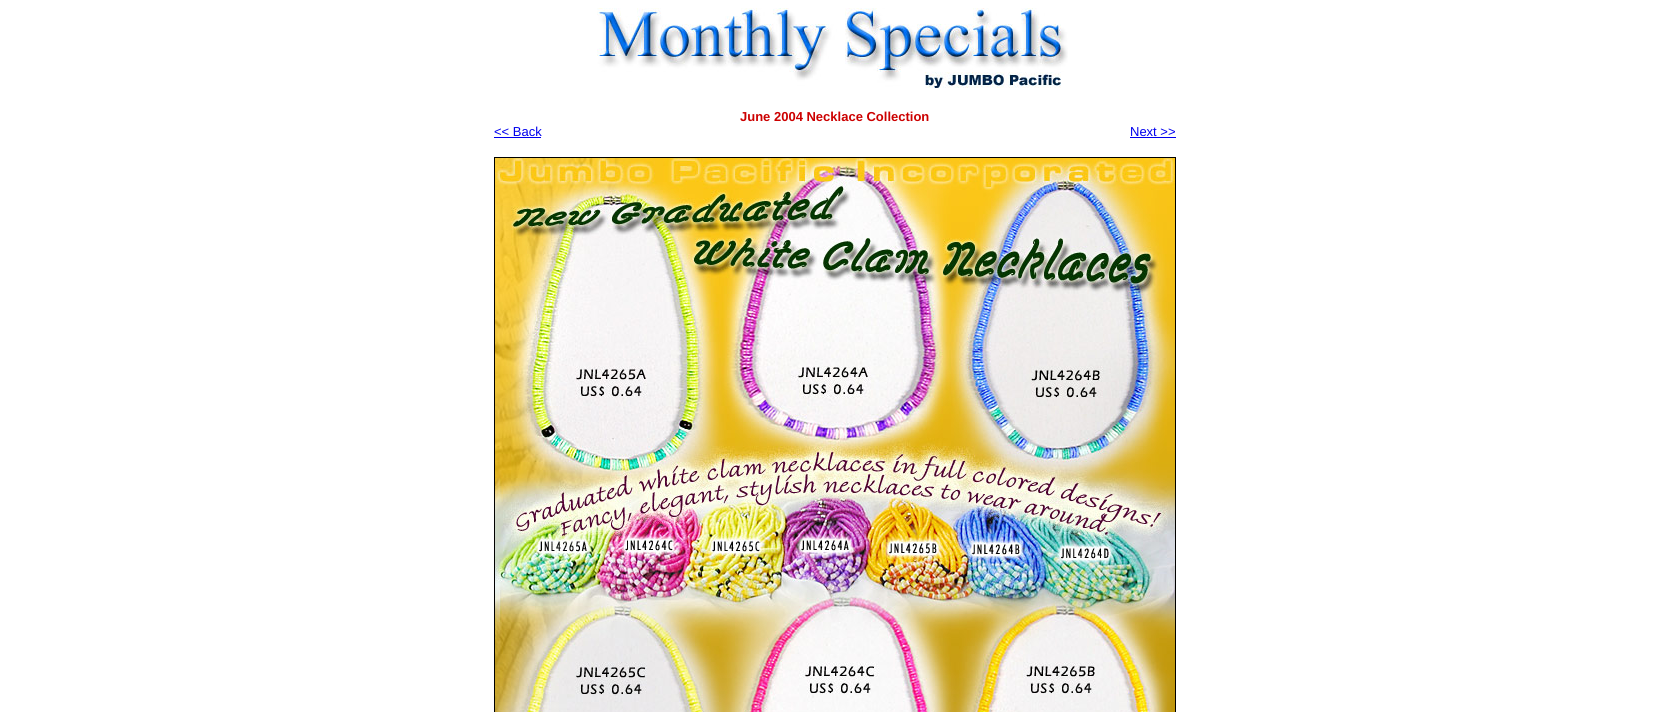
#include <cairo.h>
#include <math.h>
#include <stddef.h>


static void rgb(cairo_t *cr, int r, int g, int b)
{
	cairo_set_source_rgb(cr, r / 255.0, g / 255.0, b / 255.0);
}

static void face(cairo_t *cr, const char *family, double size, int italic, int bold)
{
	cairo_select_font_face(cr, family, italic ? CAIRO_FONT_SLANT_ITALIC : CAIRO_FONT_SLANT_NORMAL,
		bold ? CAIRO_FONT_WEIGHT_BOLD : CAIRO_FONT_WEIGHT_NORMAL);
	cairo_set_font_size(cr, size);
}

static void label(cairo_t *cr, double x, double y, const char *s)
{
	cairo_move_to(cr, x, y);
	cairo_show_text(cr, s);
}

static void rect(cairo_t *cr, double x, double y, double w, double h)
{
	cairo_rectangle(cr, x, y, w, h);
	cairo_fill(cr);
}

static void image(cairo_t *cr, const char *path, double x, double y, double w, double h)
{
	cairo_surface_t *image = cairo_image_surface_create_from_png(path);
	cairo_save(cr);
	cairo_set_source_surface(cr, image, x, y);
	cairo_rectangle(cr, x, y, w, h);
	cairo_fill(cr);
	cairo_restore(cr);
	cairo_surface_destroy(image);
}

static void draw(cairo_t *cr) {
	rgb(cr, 255, 255, 255);
	cairo_paint(cr);
	image(cr, "image0.png", 597, 8, 471, 80);
	face(cr, "Liberation Sans", 13, 0, 1);
	rgb(cr, 204, 0, 0);
	label(cr, 740, 121, "June 2004 Necklace Collection");
	face(cr, "Liberation Sans", 13, 0, 0);
	rgb(cr, 0, 0, 238);
	label(cr, 494, 136, "<< Back");
	rect(cr, 494, 137, 47, 1);
	label(cr, 1130, 136, "Next >>");
	rect(cr, 1130, 137, 46, 1);
	cairo_rectangle(cr, 494.5, 157.5, 681, 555);
	rgb(cr, 0, 0, 0);
	cairo_set_line_width(cr, 1);
	cairo_stroke(cr);
	image(cr, "image1.png", 495, 158, 680, 554);
}

int main(void) {
	cairo_surface_t *surface = cairo_image_surface_create(CAIRO_FORMAT_RGB24, 1669, 712);
	cairo_t *cr = cairo_create(surface);
	cairo_font_options_t *options = cairo_font_options_create();
	cairo_font_options_set_hint_metrics(options, CAIRO_HINT_METRICS_OFF);
	cairo_font_options_set_hint_style(options, CAIRO_HINT_STYLE_NONE);
	cairo_set_font_options(cr, options);
	cairo_set_miter_limit(cr, 4);
	draw(cr);
	cairo_surface_write_to_png(surface, "render.png");
	cairo_font_options_destroy(options);
	cairo_destroy(cr);
	cairo_surface_destroy(surface);
	return 0;
}
